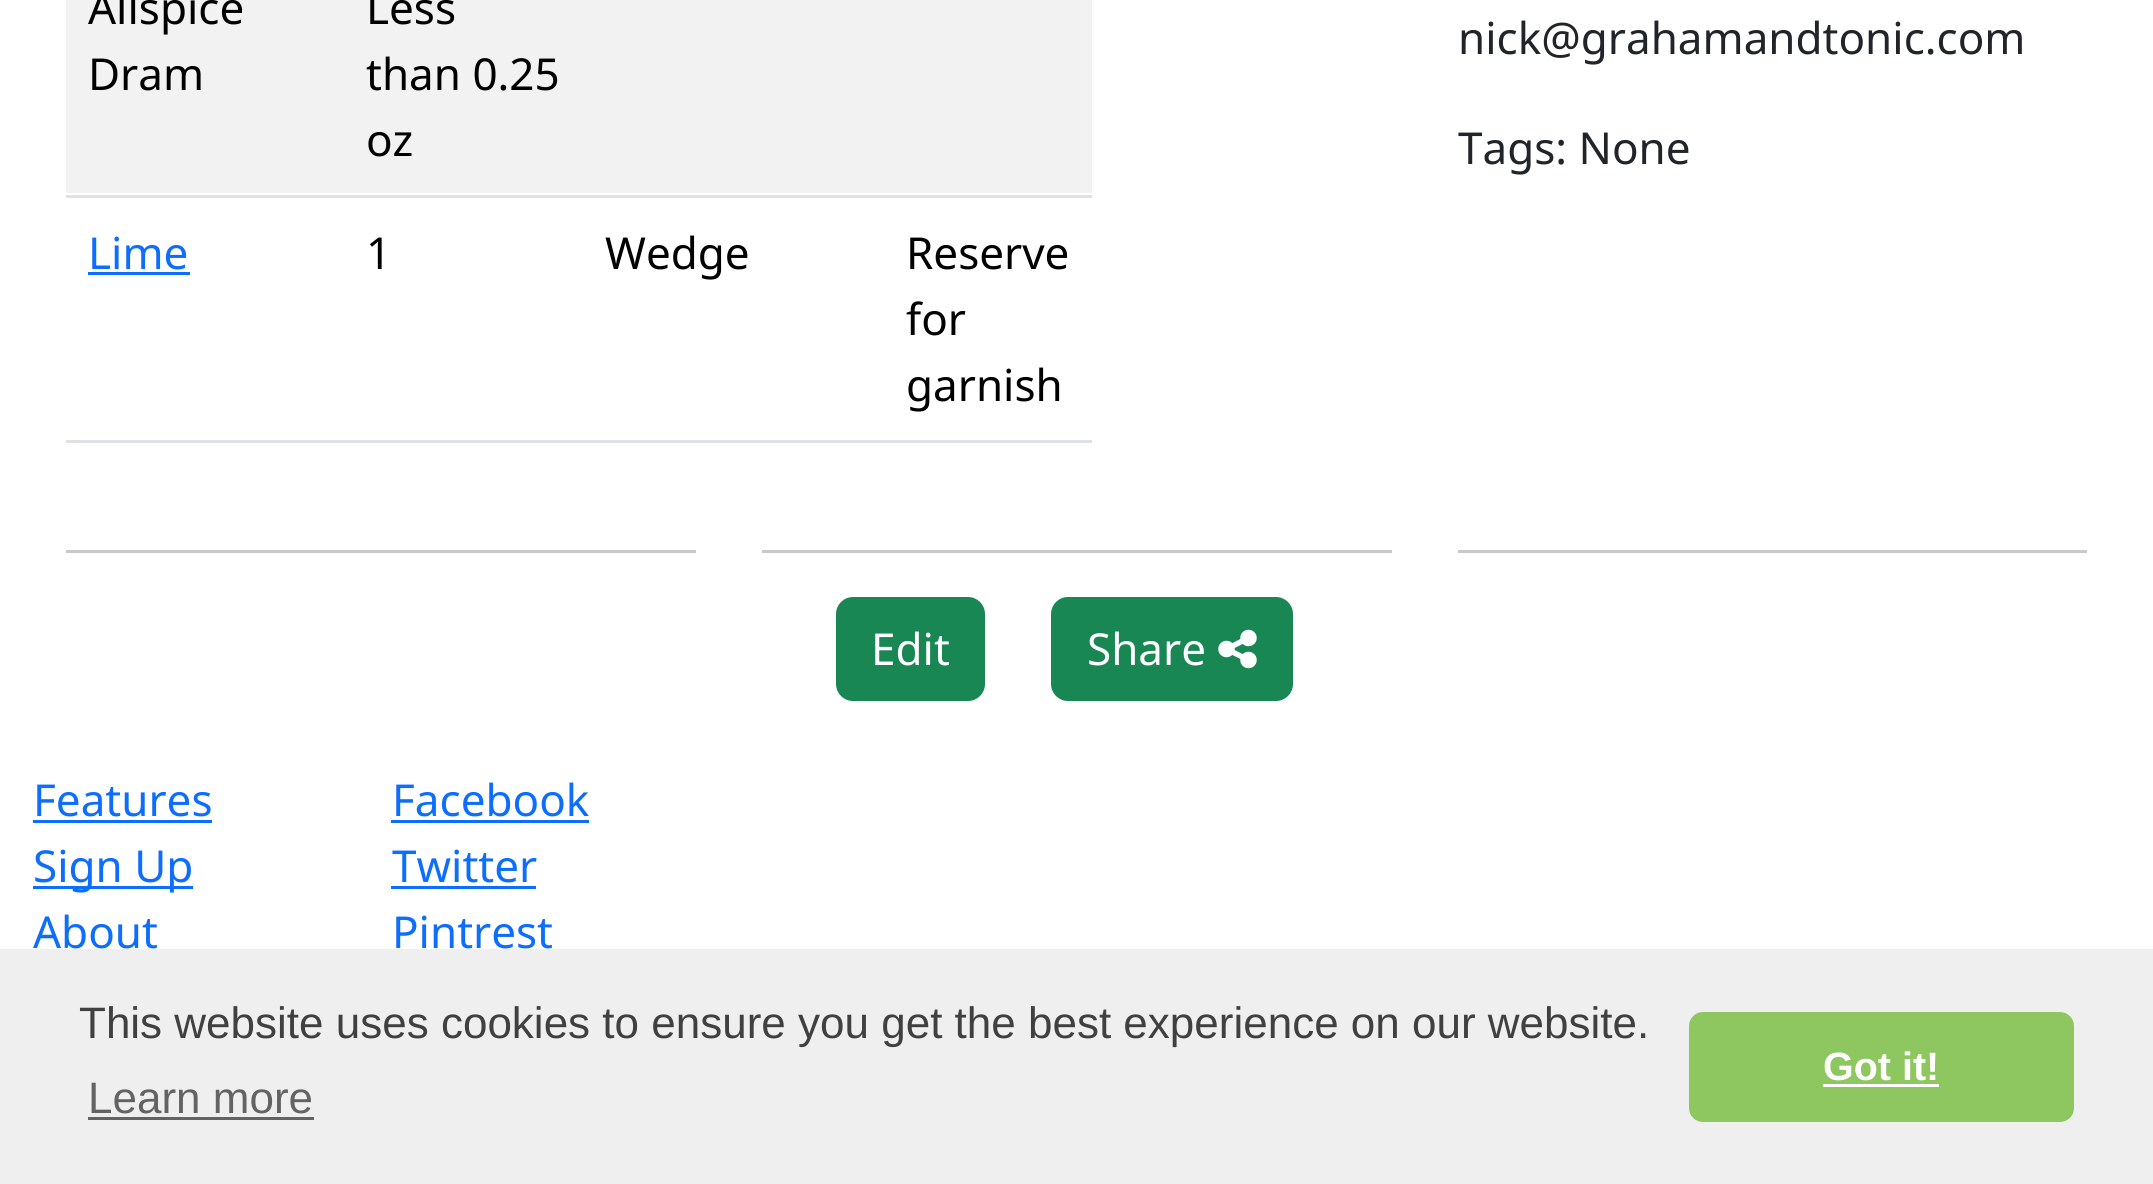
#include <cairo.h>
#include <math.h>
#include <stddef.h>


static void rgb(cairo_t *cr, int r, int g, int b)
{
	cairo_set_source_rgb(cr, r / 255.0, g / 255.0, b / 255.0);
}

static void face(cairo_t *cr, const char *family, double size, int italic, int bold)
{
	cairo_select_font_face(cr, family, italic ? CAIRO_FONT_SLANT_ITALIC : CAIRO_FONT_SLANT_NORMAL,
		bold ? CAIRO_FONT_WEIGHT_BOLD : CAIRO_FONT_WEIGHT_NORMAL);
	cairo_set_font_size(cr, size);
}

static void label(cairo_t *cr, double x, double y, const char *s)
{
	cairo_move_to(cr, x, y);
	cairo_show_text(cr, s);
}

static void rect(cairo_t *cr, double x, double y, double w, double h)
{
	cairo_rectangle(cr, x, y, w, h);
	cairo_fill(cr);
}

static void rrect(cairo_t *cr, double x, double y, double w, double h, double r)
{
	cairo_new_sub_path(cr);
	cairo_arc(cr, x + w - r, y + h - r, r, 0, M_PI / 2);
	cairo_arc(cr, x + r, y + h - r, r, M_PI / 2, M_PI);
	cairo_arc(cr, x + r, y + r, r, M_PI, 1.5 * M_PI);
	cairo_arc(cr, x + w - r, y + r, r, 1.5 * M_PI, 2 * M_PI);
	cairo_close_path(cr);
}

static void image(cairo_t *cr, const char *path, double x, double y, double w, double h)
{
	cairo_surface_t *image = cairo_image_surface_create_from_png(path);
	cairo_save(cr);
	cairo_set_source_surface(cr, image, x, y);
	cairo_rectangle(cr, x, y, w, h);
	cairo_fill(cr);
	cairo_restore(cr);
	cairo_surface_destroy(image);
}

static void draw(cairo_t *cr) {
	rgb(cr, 255, 255, 255);
	cairo_paint(cr);
	rgb(cr, 242, 242, 242);
	rect(cr, 66, 0, 1026, 193);
	face(cr, "Noto Sans", 44, 0, 0);
	rgb(cr, 0, 0, 0);
	label(cr, 88, 24, "Allspice");
	label(cr, 88, 90, "Dram");
	label(cr, 366, 24, "Less");
	label(cr, 366, 90, "than 0.25");
	label(cr, 366, 156, "oz");
	rgb(cr, 222, 226, 230);
	rect(cr, 66, 195, 1026, 3);
	rgb(cr, 13, 110, 253);
	label(cr, 88, 269, "Lime");
	rect(cr, 88, 272, 102, 3);
	rgb(cr, 0, 0, 0);
	label(cr, 366, 269, "1");
	label(cr, 605, 269, "Wedge");
	rgb(cr, 222, 226, 230);
	rect(cr, 66, 440, 1026, 3);
	rgb(cr, 0, 0, 0);
	label(cr, 906, 269, "Reserve");
	label(cr, 906, 335, "for");
	label(cr, 906, 401, "garnish");
	rgb(cr, 33, 37, 41);
	label(cr, 1458, 54, "nick@grahamandtonic.com");
	label(cr, 1458, 164, "Tags: None");
	rgb(cr, 200, 201, 202);
	rect(cr, 66, 550, 630, 3);
	rect(cr, 1458, 550, 629, 3);
	rect(cr, 762, 550, 630, 3);
	rgb(cr, 25, 135, 84);
	rrect(cr, 837.5, 598.5, 146, 101, 15.5);
	cairo_fill_preserve(cr);
	cairo_set_line_width(cr, 3);
	cairo_stroke(cr);
	rgb(cr, 255, 255, 255);
	label(cr, 871, 665, "Edit");
	rgb(cr, 25, 135, 84);
	rrect(cr, 1052.5, 598.5, 239, 101, 15.5);
	cairo_fill_preserve(cr);
	cairo_stroke(cr);
	rgb(cr, 255, 255, 255);
	label(cr, 1087, 665, "Share");
	image(cr, "image0.png", 1218, 629, 39, 40);
	rgb(cr, 13, 110, 253);
	label(cr, 33, 816, "Features");
	rect(cr, 33, 820, 179, 3);
	rect(cr, 33, 886, 160, 3);
	label(cr, 33, 882, "Sign Up");
	label(cr, 33, 948, "About");
	label(cr, 392, 816, "Facebook");
	rect(cr, 391, 820, 198, 3);
	label(cr, 392, 882, "Twitter");
	rect(cr, 391, 886, 145, 3);
	label(cr, 392, 948, "Pintrest");
	rgb(cr, 239, 239, 239);
	rect(cr, 0, 949, 2153, 235);
	face(cr, "Liberation Sans", 44, 0, 0);
	rgb(cr, 64, 64, 64);
	label(cr, 79, 1038, "This website uses cookies to ensure you get the best experience on our website.");
	rgb(cr, 99, 99, 99);
	label(cr, 88, 1113, "Learn more");
	rect(cr, 88, 1117, 226, 3);
	rgb(cr, 142, 199, 96);
	rrect(cr, 1689, 1012, 385, 110, 14);
	cairo_fill(cr);
	face(cr, "Liberation Sans", 39.5, 0, 1);
	rgb(cr, 255, 255, 255);
	label(cr, 1823, 1080, "Got it!");
	rect(cr, 1823, 1084, 116, 3);
}

int main(void) {
	cairo_surface_t *surface = cairo_image_surface_create(CAIRO_FORMAT_RGB24, 2153, 1184);
	cairo_t *cr = cairo_create(surface);
	cairo_font_options_t *options = cairo_font_options_create();
	cairo_font_options_set_hint_metrics(options, CAIRO_HINT_METRICS_OFF);
	cairo_font_options_set_hint_style(options, CAIRO_HINT_STYLE_NONE);
	cairo_set_font_options(cr, options);
	cairo_set_miter_limit(cr, 4);
	draw(cr);
	cairo_surface_write_to_png(surface, "render.png");
	cairo_font_options_destroy(options);
	cairo_destroy(cr);
	cairo_surface_destroy(surface);
	return 0;
}
